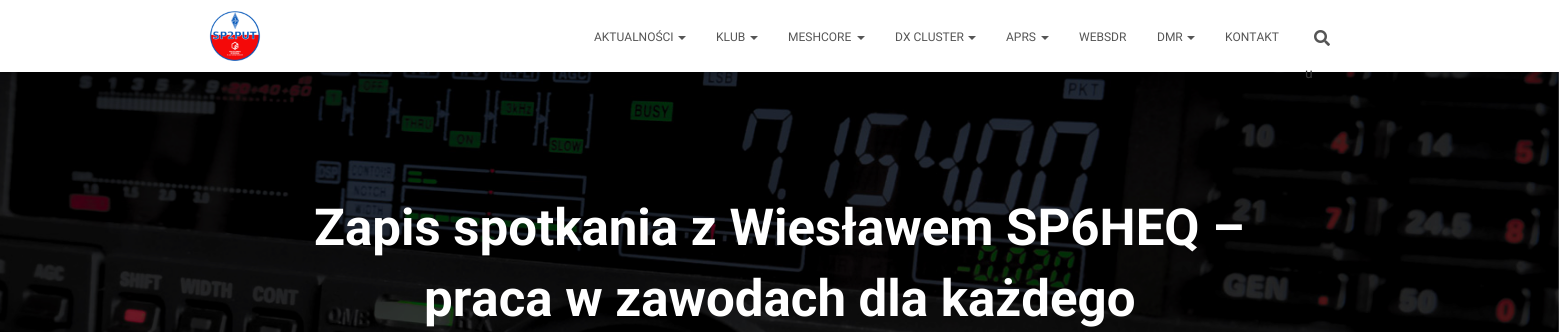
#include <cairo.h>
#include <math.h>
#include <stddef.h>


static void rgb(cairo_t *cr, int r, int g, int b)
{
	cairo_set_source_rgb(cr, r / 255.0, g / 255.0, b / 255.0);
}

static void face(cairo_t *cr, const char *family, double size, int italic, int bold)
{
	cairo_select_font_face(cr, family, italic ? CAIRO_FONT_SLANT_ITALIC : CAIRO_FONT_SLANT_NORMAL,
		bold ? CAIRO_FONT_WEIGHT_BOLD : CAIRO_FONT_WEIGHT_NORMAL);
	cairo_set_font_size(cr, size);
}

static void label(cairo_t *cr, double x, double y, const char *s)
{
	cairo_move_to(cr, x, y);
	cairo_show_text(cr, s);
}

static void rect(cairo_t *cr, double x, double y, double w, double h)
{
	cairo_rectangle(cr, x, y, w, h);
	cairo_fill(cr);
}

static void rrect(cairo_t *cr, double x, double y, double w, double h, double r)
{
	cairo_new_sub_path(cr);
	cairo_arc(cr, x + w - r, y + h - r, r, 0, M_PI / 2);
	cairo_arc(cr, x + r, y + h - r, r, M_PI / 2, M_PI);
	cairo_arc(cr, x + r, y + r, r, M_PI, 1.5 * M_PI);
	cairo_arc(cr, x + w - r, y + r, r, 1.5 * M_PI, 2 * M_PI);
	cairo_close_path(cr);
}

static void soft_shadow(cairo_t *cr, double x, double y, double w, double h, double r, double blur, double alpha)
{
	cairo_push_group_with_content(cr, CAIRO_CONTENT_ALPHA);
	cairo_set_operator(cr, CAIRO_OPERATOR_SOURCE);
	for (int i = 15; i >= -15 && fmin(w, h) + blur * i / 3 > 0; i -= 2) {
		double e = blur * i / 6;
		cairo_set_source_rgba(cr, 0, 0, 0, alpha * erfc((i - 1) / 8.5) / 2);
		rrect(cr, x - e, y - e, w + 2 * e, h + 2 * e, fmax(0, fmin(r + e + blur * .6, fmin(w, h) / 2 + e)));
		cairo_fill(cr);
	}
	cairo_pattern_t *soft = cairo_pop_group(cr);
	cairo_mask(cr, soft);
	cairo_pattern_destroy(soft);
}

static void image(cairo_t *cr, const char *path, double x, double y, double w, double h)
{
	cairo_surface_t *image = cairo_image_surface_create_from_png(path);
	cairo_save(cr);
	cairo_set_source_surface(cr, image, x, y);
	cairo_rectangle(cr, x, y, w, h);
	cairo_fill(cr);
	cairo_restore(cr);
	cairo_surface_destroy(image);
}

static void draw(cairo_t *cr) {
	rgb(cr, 255, 255, 255);
	cairo_paint(cr);
	image(cr, "image2.png", 0, 72, 1559, 260);
	rgb(cr, 0, 0, 0);
	soft_shadow(cr, 2, 6, 1555, 68, 0, 2.5, 0.1);
	soft_shadow(cr, 0, 1, 1559, 72, 0, 5, 0.12);
	soft_shadow(cr, 6, 7, 1547, 60, 0, 5, 0.42);
	rgb(cr, 255, 255, 255);
	rect(cr, 0, 0, 1559, 72);
	image(cr, "image0.png", 209, 11, 52, 50);
	face(cr, "Roboto", 12, 0, 0);
	rgb(cr, 85, 85, 85);
	label(cr, 594, 41, "AKTUALNOŚCI");
	cairo_new_path(cr);
	cairo_move_to(cr, 678, 36);
	cairo_line_to(cr, 686, 36);
	cairo_line_to(cr, 682, 40);
	cairo_close_path(cr);
	cairo_fill(cr);
	label(cr, 716, 41, "KLUB");
	cairo_new_path(cr);
	cairo_move_to(cr, 750, 36);
	cairo_line_to(cr, 758, 36);
	cairo_line_to(cr, 754, 40);
	cairo_close_path(cr);
	cairo_fill(cr);
	label(cr, 788, 41, "MESHCORE");
	cairo_new_path(cr);
	cairo_move_to(cr, 857, 36);
	cairo_line_to(cr, 865, 36);
	cairo_line_to(cr, 861, 40);
	cairo_close_path(cr);
	cairo_fill(cr);
	label(cr, 895, 41, "DX CLUSTER");
	cairo_new_path(cr);
	cairo_move_to(cr, 968, 36);
	cairo_line_to(cr, 976, 36);
	cairo_line_to(cr, 972, 40);
	cairo_close_path(cr);
	cairo_fill(cr);
	label(cr, 1006, 41, "APRS");
	cairo_new_path(cr);
	cairo_move_to(cr, 1041, 36);
	cairo_line_to(cr, 1049, 36);
	cairo_line_to(cr, 1045, 40);
	cairo_close_path(cr);
	cairo_fill(cr);
	label(cr, 1079, 41, "WEBSDR");
	label(cr, 1157, 41, "DMR");
	cairo_new_path(cr);
	cairo_move_to(cr, 1187, 36);
	cairo_line_to(cr, 1195, 36);
	cairo_line_to(cr, 1191, 40);
	cairo_close_path(cr);
	cairo_fill(cr);
	label(cr, 1225, 41, "KONTAKT");
	image(cr, "image1.png", 1314, 30, 16, 16);
	face(cr, "Roboto", 14, 0, 0);
	rgb(cr, 52, 52, 52);
	label(cr, 1305, 78, "u");
	face(cr, "Roboto", 51, 0, 1);
	rgb(cr, 255, 255, 255);
	label(cr, 314, 245, "Zapis spotkania z Wiesławem SP6HEQ –");
	label(cr, 424, 316, "praca w zawodach dla każdego");
}

int main(void) {
	cairo_surface_t *surface = cairo_image_surface_create(CAIRO_FORMAT_RGB24, 1559, 332);
	cairo_t *cr = cairo_create(surface);
	cairo_font_options_t *options = cairo_font_options_create();
	cairo_font_options_set_hint_metrics(options, CAIRO_HINT_METRICS_OFF);
	cairo_font_options_set_hint_style(options, CAIRO_HINT_STYLE_NONE);
	cairo_set_font_options(cr, options);
	cairo_set_miter_limit(cr, 4);
	draw(cr);
	cairo_surface_write_to_png(surface, "render.png");
	cairo_font_options_destroy(options);
	cairo_destroy(cr);
	cairo_surface_destroy(surface);
	return 0;
}
